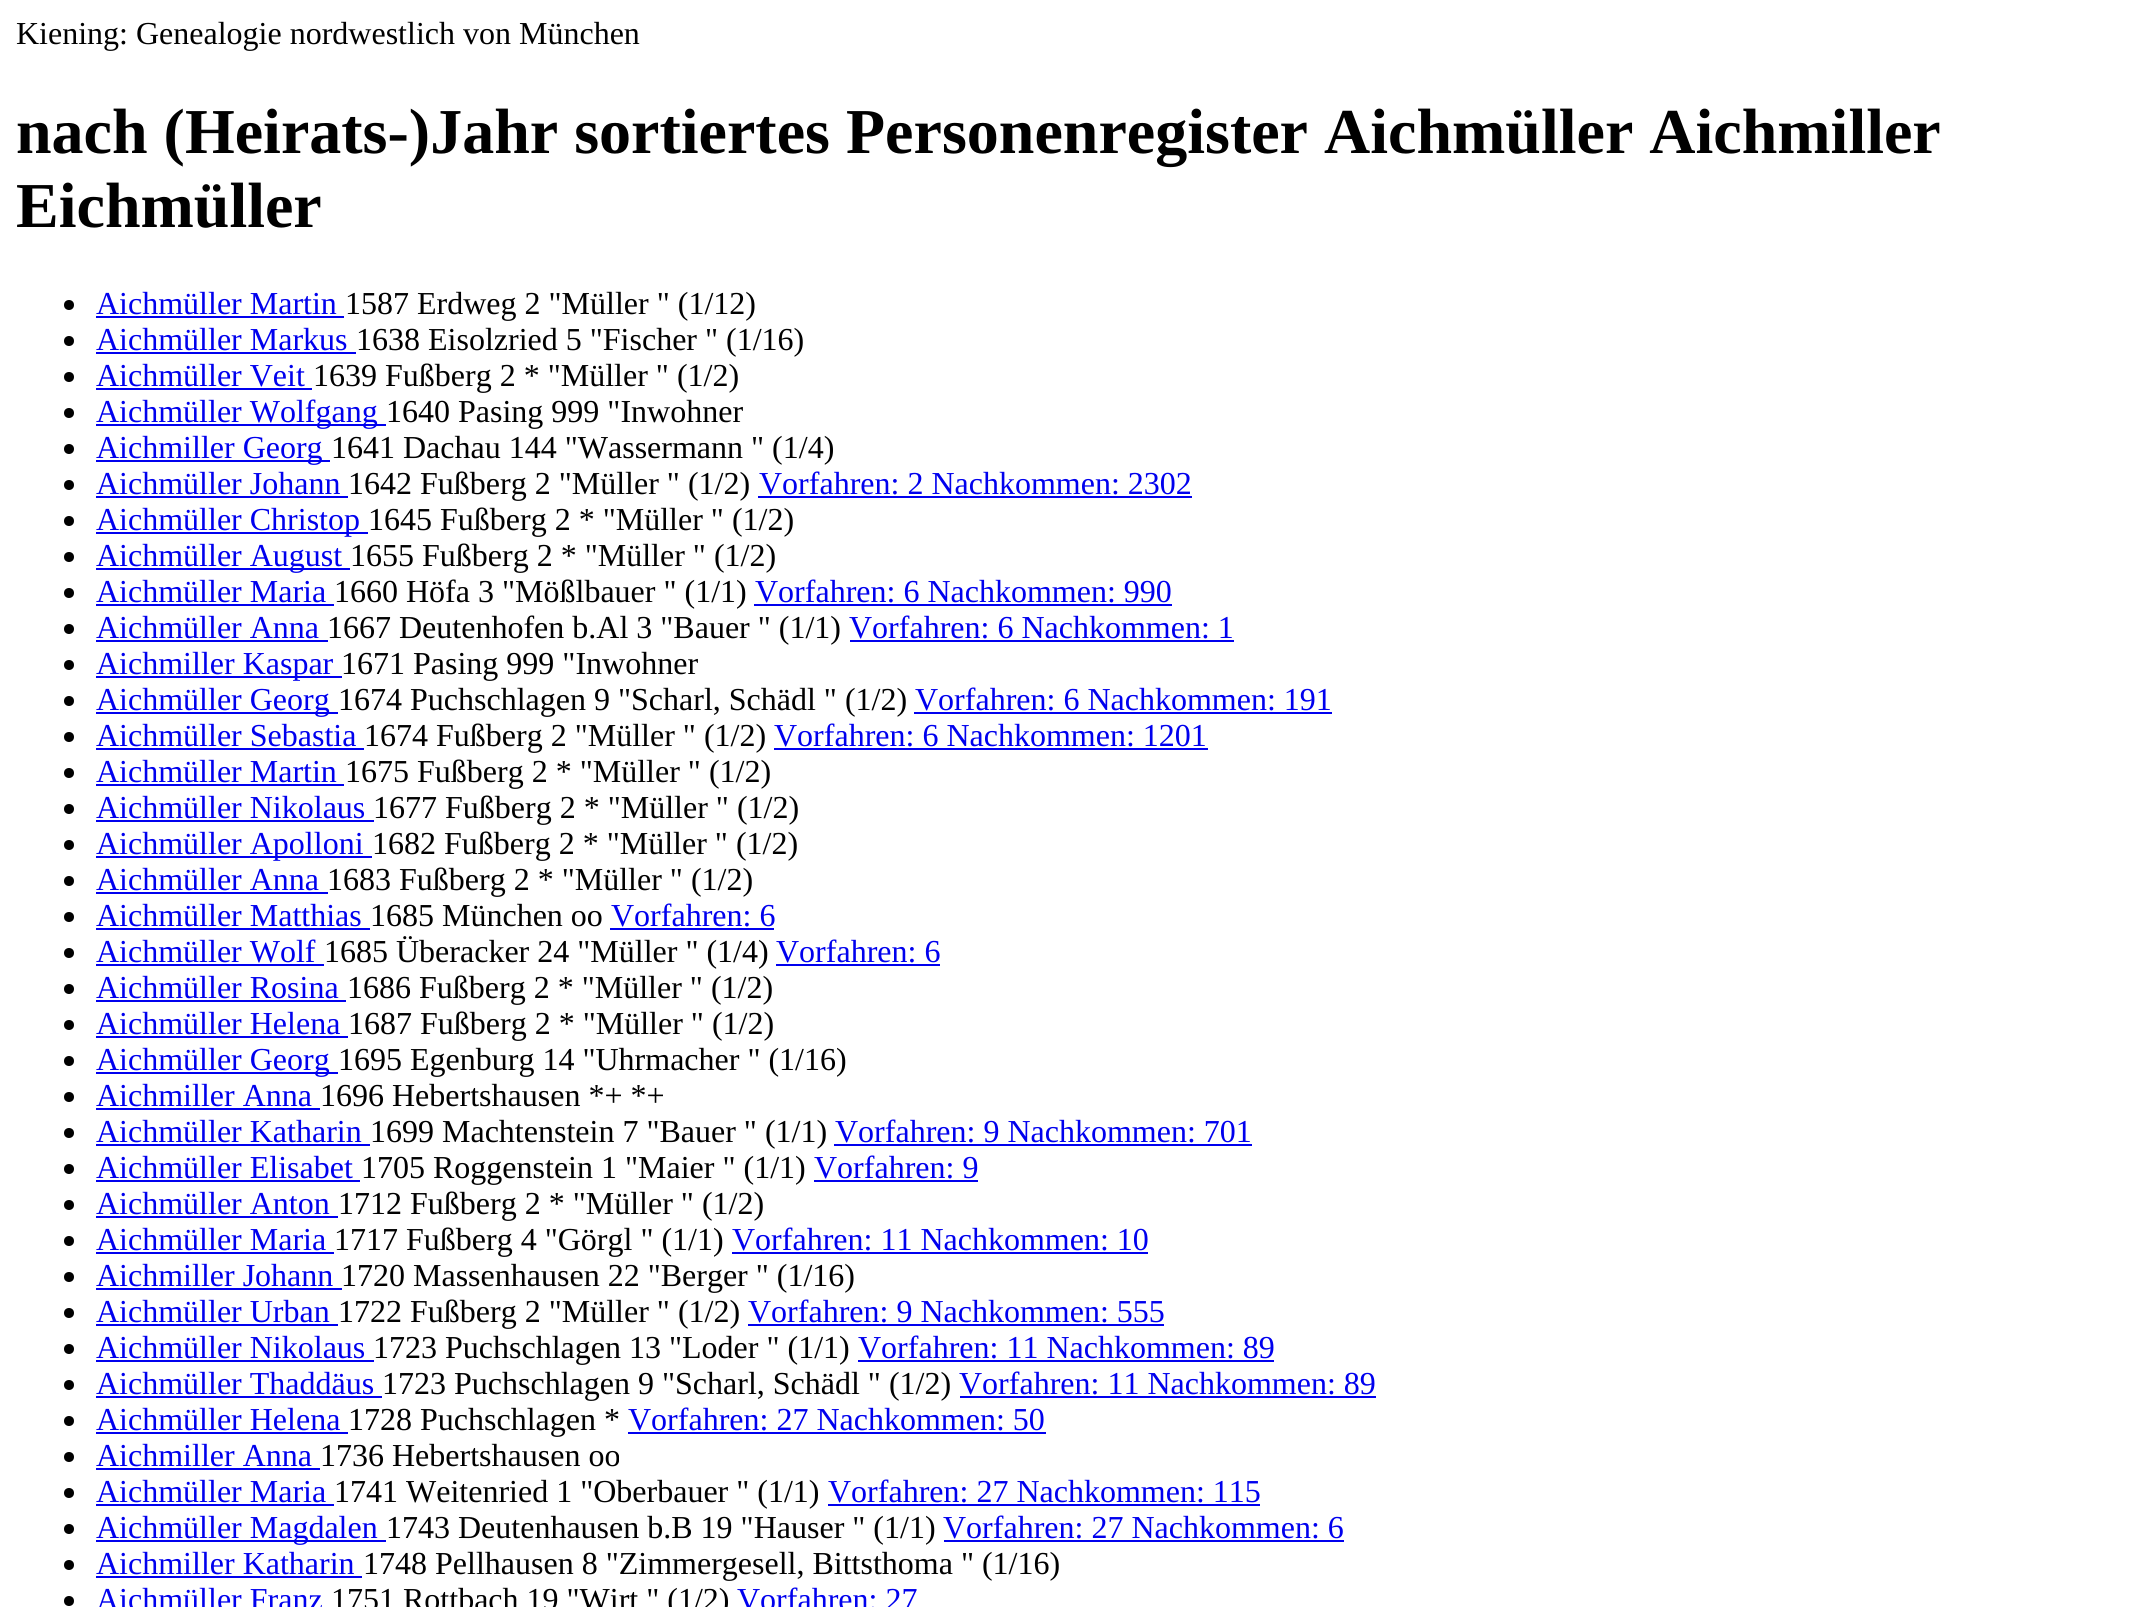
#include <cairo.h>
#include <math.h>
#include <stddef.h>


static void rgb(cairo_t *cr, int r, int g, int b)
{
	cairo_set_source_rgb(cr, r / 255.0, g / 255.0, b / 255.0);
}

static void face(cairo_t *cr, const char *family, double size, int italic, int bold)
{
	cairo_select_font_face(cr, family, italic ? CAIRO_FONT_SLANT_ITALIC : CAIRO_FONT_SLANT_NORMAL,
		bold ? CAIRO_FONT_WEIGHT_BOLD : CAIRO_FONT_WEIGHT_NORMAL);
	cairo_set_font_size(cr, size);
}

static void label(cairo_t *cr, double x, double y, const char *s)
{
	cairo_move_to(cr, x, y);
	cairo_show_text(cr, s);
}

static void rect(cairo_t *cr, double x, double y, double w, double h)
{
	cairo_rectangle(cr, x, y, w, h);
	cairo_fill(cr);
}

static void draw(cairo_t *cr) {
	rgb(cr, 255, 255, 255);
	cairo_paint(cr);
	face(cr, "Liberation Serif", 32, 0, 0);
	rgb(cr, 0, 0, 0);
	label(cr, 16, 44, "Kiening: Genealogie nordwestlich von München");
	face(cr, "Liberation Serif", 64, 0, 1);
	label(cr, 16, 153, "nach (Heirats-)Jahr sortiertes Personenregister Aichmüller Aichmiller");
	label(cr, 16, 227, "Eichmüller");
	cairo_new_path(cr);
	cairo_arc(cr, 69, 305, 5, 0, 2 * M_PI);
	cairo_fill(cr);
	face(cr, "Liberation Serif", 32, 0, 0);
	rgb(cr, 0, 0, 238);
	label(cr, 96, 314, "Aichmüller Martin");
	rect(cr, 96, 316, 248, 2);
	rgb(cr, 0, 0, 0);
	label(cr, 345, 314, "1587 Erdweg 2 \"Müller \" (1/12)");
	cairo_new_path(cr);
	cairo_arc(cr, 69, 341, 5, 0, 2 * M_PI);
	cairo_fill(cr);
	rgb(cr, 0, 0, 238);
	label(cr, 96, 350, "Aichmüller Markus");
	rect(cr, 96, 352, 260, 2);
	rgb(cr, 0, 0, 0);
	label(cr, 356, 350, "1638 Eisolzried 5 \"Fischer \" (1/16)");
	cairo_new_path(cr);
	cairo_arc(cr, 69, 377, 5, 0, 2 * M_PI);
	cairo_fill(cr);
	rgb(cr, 0, 0, 238);
	label(cr, 96, 386, "Aichmüller Veit");
	rect(cr, 96, 388, 216, 2);
	rgb(cr, 0, 0, 0);
	label(cr, 313, 386, "1639 Fußberg 2 * \"Müller \" (1/2)");
	cairo_new_path(cr);
	cairo_arc(cr, 69, 413, 5, 0, 2 * M_PI);
	cairo_fill(cr);
	rgb(cr, 0, 0, 238);
	rect(cr, 96, 424, 290, 2);
	label(cr, 96, 422, "Aichmüller Wolfgang");
	rgb(cr, 0, 0, 0);
	label(cr, 386, 422, "1640 Pasing 999 \"Inwohner");
	cairo_new_path(cr);
	cairo_arc(cr, 69, 449, 5, 0, 2 * M_PI);
	cairo_fill(cr);
	rgb(cr, 0, 0, 238);
	rect(cr, 96, 460, 234, 2);
	label(cr, 96, 458, "Aichmiller Georg");
	rgb(cr, 0, 0, 0);
	label(cr, 331, 458, "1641 Dachau 144 \"Wassermann \" (1/4)");
	cairo_new_path(cr);
	cairo_arc(cr, 69, 485, 5, 0, 2 * M_PI);
	cairo_fill(cr);
	rgb(cr, 0, 0, 238);
	label(cr, 96, 494, "Aichmüller Johann");
	rect(cr, 96, 496, 252, 2);
	rgb(cr, 0, 0, 0);
	label(cr, 348, 494, "1642 Fußberg 2 \"Müller \" (1/2)");
	rgb(cr, 0, 0, 238);
	label(cr, 759, 494, "Vorfahren: 2 Nachkommen: 2302");
	rect(cr, 758, 496, 434, 2);
	rgb(cr, 0, 0, 0);
	cairo_new_path(cr);
	cairo_arc(cr, 69, 521, 5, 0, 2 * M_PI);
	cairo_fill(cr);
	rgb(cr, 0, 0, 238);
	rect(cr, 96, 532, 272, 2);
	label(cr, 96, 530, "Aichmüller Christop");
	rgb(cr, 0, 0, 0);
	label(cr, 368, 530, "1645 Fußberg 2 * \"Müller \" (1/2)");
	cairo_new_path(cr);
	cairo_arc(cr, 69, 557, 5, 0, 2 * M_PI);
	cairo_fill(cr);
	rgb(cr, 0, 0, 238);
	rect(cr, 96, 568, 254, 2);
	label(cr, 96, 566, "Aichmüller August");
	rgb(cr, 0, 0, 0);
	label(cr, 350, 566, "1655 Fußberg 2 * \"Müller \" (1/2)");
	cairo_new_path(cr);
	cairo_arc(cr, 69, 593, 5, 0, 2 * M_PI);
	cairo_fill(cr);
	rgb(cr, 0, 0, 238);
	label(cr, 96, 602, "Aichmüller Maria");
	rect(cr, 96, 604, 238, 2);
	rgb(cr, 0, 0, 0);
	label(cr, 334, 602, "1660 Höfa 3 \"Mößlbauer \" (1/1)");
	rgb(cr, 0, 0, 238);
	label(cr, 755, 602, "Vorfahren: 6 Nachkommen: 990");
	rect(cr, 754, 604, 418, 2);
	rgb(cr, 0, 0, 0);
	cairo_new_path(cr);
	cairo_arc(cr, 69, 629, 5, 0, 2 * M_PI);
	cairo_fill(cr);
	rgb(cr, 0, 0, 238);
	label(cr, 96, 638, "Aichmüller Anna");
	rect(cr, 96, 640, 232, 2);
	rgb(cr, 0, 0, 0);
	label(cr, 327, 638, "1667 Deutenhofen b.Al 3 \"Bauer \" (1/1)");
	rgb(cr, 0, 0, 238);
	label(cr, 849, 638, "Vorfahren: 6 Nachkommen: 1");
	rect(cr, 850, 640, 384, 2);
	rgb(cr, 0, 0, 0);
	cairo_new_path(cr);
	cairo_arc(cr, 69, 665, 5, 0, 2 * M_PI);
	cairo_fill(cr);
	rgb(cr, 0, 0, 238);
	rect(cr, 96, 676, 246, 2);
	label(cr, 96, 674, "Aichmiller Kaspar");
	rgb(cr, 0, 0, 0);
	label(cr, 341, 674, "1671 Pasing 999 \"Inwohner");
	cairo_new_path(cr);
	cairo_arc(cr, 69, 701, 5, 0, 2 * M_PI);
	cairo_fill(cr);
	rgb(cr, 0, 0, 238);
	rect(cr, 96, 712, 242, 2);
	label(cr, 96, 710, "Aichmüller Georg");
	rgb(cr, 0, 0, 0);
	label(cr, 338, 710, "1674 Puchschlagen 9 \"Scharl, Schädl \" (1/2)");
	rgb(cr, 0, 0, 238);
	label(cr, 915, 710, "Vorfahren: 6 Nachkommen: 191");
	rect(cr, 914, 712, 418, 2);
	rgb(cr, 0, 0, 0);
	cairo_new_path(cr);
	cairo_arc(cr, 69, 737, 5, 0, 2 * M_PI);
	cairo_fill(cr);
	rgb(cr, 0, 0, 238);
	label(cr, 96, 746, "Aichmüller Sebastia");
	rect(cr, 96, 748, 268, 2);
	rgb(cr, 0, 0, 0);
	label(cr, 364, 746, "1674 Fußberg 2 \"Müller \" (1/2)");
	rgb(cr, 0, 0, 238);
	label(cr, 774, 746, "Vorfahren: 6 Nachkommen: 1201");
	rect(cr, 774, 748, 434, 2);
	rgb(cr, 0, 0, 0);
	cairo_new_path(cr);
	cairo_arc(cr, 69, 773, 5, 0, 2 * M_PI);
	cairo_fill(cr);
	rgb(cr, 0, 0, 238);
	label(cr, 96, 782, "Aichmüller Martin");
	rect(cr, 96, 784, 248, 2);
	rgb(cr, 0, 0, 0);
	label(cr, 345, 782, "1675 Fußberg 2 * \"Müller \" (1/2)");
	cairo_new_path(cr);
	cairo_arc(cr, 69, 809, 5, 0, 2 * M_PI);
	cairo_fill(cr);
	rgb(cr, 0, 0, 238);
	label(cr, 96, 818, "Aichmüller Nikolaus");
	rect(cr, 96, 820, 278, 2);
	rgb(cr, 0, 0, 0);
	label(cr, 373, 818, "1677 Fußberg 2 * \"Müller \" (1/2)");
	cairo_new_path(cr);
	cairo_arc(cr, 69, 845, 5, 0, 2 * M_PI);
	cairo_fill(cr);
	rgb(cr, 0, 0, 238);
	rect(cr, 96, 856, 276, 2);
	label(cr, 96, 854, "Aichmüller Apolloni");
	rgb(cr, 0, 0, 0);
	label(cr, 372, 854, "1682 Fußberg 2 * \"Müller \" (1/2)");
	cairo_new_path(cr);
	cairo_arc(cr, 69, 881, 5, 0, 2 * M_PI);
	cairo_fill(cr);
	rgb(cr, 0, 0, 238);
	label(cr, 96, 890, "Aichmüller Anna");
	rect(cr, 96, 892, 232, 2);
	rgb(cr, 0, 0, 0);
	label(cr, 327, 890, "1683 Fußberg 2 * \"Müller \" (1/2)");
	cairo_new_path(cr);
	cairo_arc(cr, 69, 917, 5, 0, 2 * M_PI);
	cairo_fill(cr);
	rgb(cr, 0, 0, 238);
	label(cr, 96, 926, "Aichmüller Matthias");
	rect(cr, 96, 928, 274, 2);
	rgb(cr, 0, 0, 0);
	label(cr, 370, 926, "1685 München oo");
	rgb(cr, 0, 0, 238);
	label(cr, 611, 926, "Vorfahren: 6");
	rect(cr, 610, 928, 164, 2);
	rgb(cr, 0, 0, 0);
	cairo_new_path(cr);
	cairo_arc(cr, 69, 953, 5, 0, 2 * M_PI);
	cairo_fill(cr);
	rgb(cr, 0, 0, 238);
	label(cr, 96, 962, "Aichmüller Wolf");
	rect(cr, 96, 964, 228, 2);
	rgb(cr, 0, 0, 0);
	label(cr, 324, 962, "1685 Überacker 24 \"Müller \" (1/4)");
	rgb(cr, 0, 0, 238);
	label(cr, 776, 962, "Vorfahren: 6");
	rect(cr, 776, 964, 164, 2);
	rgb(cr, 0, 0, 0);
	cairo_new_path(cr);
	cairo_arc(cr, 69, 989, 5, 0, 2 * M_PI);
	cairo_fill(cr);
	rgb(cr, 0, 0, 238);
	label(cr, 96, 998, "Aichmüller Rosina");
	rect(cr, 96, 1000, 250, 2);
	rgb(cr, 0, 0, 0);
	label(cr, 347, 998, "1686 Fußberg 2 * \"Müller \" (1/2)");
	cairo_new_path(cr);
	cairo_arc(cr, 69, 1025, 5, 0, 2 * M_PI);
	cairo_fill(cr);
	rgb(cr, 0, 0, 238);
	label(cr, 96, 1034, "Aichmüller Helena");
	rect(cr, 96, 1036, 252, 2);
	rgb(cr, 0, 0, 0);
	label(cr, 348, 1034, "1687 Fußberg 2 * \"Müller \" (1/2)");
	cairo_new_path(cr);
	cairo_arc(cr, 69, 1061, 5, 0, 2 * M_PI);
	cairo_fill(cr);
	rgb(cr, 0, 0, 238);
	rect(cr, 96, 1072, 242, 2);
	label(cr, 96, 1070, "Aichmüller Georg");
	rgb(cr, 0, 0, 0);
	label(cr, 338, 1070, "1695 Egenburg 14 \"Uhrmacher \" (1/16)");
	cairo_new_path(cr);
	cairo_arc(cr, 69, 1097, 5, 0, 2 * M_PI);
	cairo_fill(cr);
	rgb(cr, 0, 0, 238);
	label(cr, 96, 1106, "Aichmiller Anna");
	rect(cr, 96, 1108, 224, 2);
	rgb(cr, 0, 0, 0);
	label(cr, 320, 1106, "1696 Hebertshausen *+ *+");
	cairo_new_path(cr);
	cairo_arc(cr, 69, 1133, 5, 0, 2 * M_PI);
	cairo_fill(cr);
	rgb(cr, 0, 0, 238);
	label(cr, 96, 1142, "Aichmüller Katharin");
	rect(cr, 96, 1144, 274, 2);
	rgb(cr, 0, 0, 0);
	label(cr, 370, 1142, "1699 Machtenstein 7 \"Bauer \" (1/1)");
	rgb(cr, 0, 0, 238);
	label(cr, 835, 1142, "Vorfahren: 9 Nachkommen: 701");
	rect(cr, 834, 1144, 418, 2);
	rgb(cr, 0, 0, 0);
	cairo_new_path(cr);
	cairo_arc(cr, 69, 1169, 5, 0, 2 * M_PI);
	cairo_fill(cr);
	rgb(cr, 0, 0, 238);
	label(cr, 96, 1178, "Aichmüller Elisabet");
	rect(cr, 96, 1180, 264, 2);
	rgb(cr, 0, 0, 0);
	label(cr, 361, 1178, "1705 Roggenstein 1 \"Maier \" (1/1)");
	rgb(cr, 0, 0, 238);
	label(cr, 814, 1178, "Vorfahren: 9");
	rect(cr, 814, 1180, 164, 2);
	rgb(cr, 0, 0, 0);
	cairo_new_path(cr);
	cairo_arc(cr, 69, 1205, 5, 0, 2 * M_PI);
	cairo_fill(cr);
	rgb(cr, 0, 0, 238);
	label(cr, 96, 1214, "Aichmüller Anton");
	rect(cr, 96, 1216, 242, 2);
	rgb(cr, 0, 0, 0);
	label(cr, 338, 1214, "1712 Fußberg 2 * \"Müller \" (1/2)");
	cairo_new_path(cr);
	cairo_arc(cr, 69, 1241, 5, 0, 2 * M_PI);
	cairo_fill(cr);
	rgb(cr, 0, 0, 238);
	label(cr, 96, 1250, "Aichmüller Maria");
	rect(cr, 96, 1252, 238, 2);
	rgb(cr, 0, 0, 0);
	label(cr, 334, 1250, "1717 Fußberg 4 \"Görgl \" (1/1)");
	rgb(cr, 0, 0, 238);
	label(cr, 732, 1250, "Vorfahren: 11 Nachkommen: 10");
	rect(cr, 732, 1252, 416, 2);
	rgb(cr, 0, 0, 0);
	cairo_new_path(cr);
	cairo_arc(cr, 69, 1277, 5, 0, 2 * M_PI);
	cairo_fill(cr);
	rgb(cr, 0, 0, 238);
	label(cr, 96, 1286, "Aichmiller Johann");
	rect(cr, 96, 1288, 246, 2);
	rgb(cr, 0, 0, 0);
	label(cr, 341, 1286, "1720 Massenhausen 22 \"Berger \" (1/16)");
	cairo_new_path(cr);
	cairo_arc(cr, 69, 1313, 5, 0, 2 * M_PI);
	cairo_fill(cr);
	rgb(cr, 0, 0, 238);
	label(cr, 96, 1322, "Aichmüller Urban");
	rect(cr, 96, 1324, 242, 2);
	rgb(cr, 0, 0, 0);
	label(cr, 338, 1322, "1722 Fußberg 2 \"Müller \" (1/2)");
	rgb(cr, 0, 0, 238);
	label(cr, 748, 1322, "Vorfahren: 9 Nachkommen: 555");
	rect(cr, 748, 1324, 416, 2);
	rgb(cr, 0, 0, 0);
	cairo_new_path(cr);
	cairo_arc(cr, 69, 1349, 5, 0, 2 * M_PI);
	cairo_fill(cr);
	rgb(cr, 0, 0, 238);
	label(cr, 96, 1358, "Aichmüller Nikolaus");
	rect(cr, 96, 1360, 278, 2);
	rgb(cr, 0, 0, 0);
	label(cr, 373, 1358, "1723 Puchschlagen 13 \"Loder \" (1/1)");
	rgb(cr, 0, 0, 238);
	label(cr, 858, 1358, "Vorfahren: 11 Nachkommen: 89");
	rect(cr, 858, 1360, 416, 2);
	rgb(cr, 0, 0, 0);
	cairo_new_path(cr);
	cairo_arc(cr, 69, 1385, 5, 0, 2 * M_PI);
	cairo_fill(cr);
	rgb(cr, 0, 0, 238);
	label(cr, 96, 1394, "Aichmüller Thaddäus");
	rect(cr, 96, 1396, 286, 2);
	rgb(cr, 0, 0, 0);
	label(cr, 382, 1394, "1723 Puchschlagen 9 \"Scharl, Schädl \" (1/2)");
	rgb(cr, 0, 0, 238);
	label(cr, 959, 1394, "Vorfahren: 11 Nachkommen: 89");
	rect(cr, 960, 1396, 416, 2);
	rgb(cr, 0, 0, 0);
	cairo_new_path(cr);
	cairo_arc(cr, 69, 1421, 5, 0, 2 * M_PI);
	cairo_fill(cr);
	rgb(cr, 0, 0, 238);
	label(cr, 96, 1430, "Aichmüller Helena");
	rect(cr, 96, 1432, 252, 2);
	rgb(cr, 0, 0, 0);
	label(cr, 348, 1430, "1728 Puchschlagen *");
	rgb(cr, 0, 0, 238);
	label(cr, 628, 1430, "Vorfahren: 27 Nachkommen: 50");
	rect(cr, 628, 1432, 418, 2);
	rgb(cr, 0, 0, 0);
	cairo_new_path(cr);
	cairo_arc(cr, 69, 1457, 5, 0, 2 * M_PI);
	cairo_fill(cr);
	rgb(cr, 0, 0, 238);
	label(cr, 96, 1466, "Aichmiller Anna");
	rect(cr, 96, 1468, 224, 2);
	rgb(cr, 0, 0, 0);
	label(cr, 320, 1466, "1736 Hebertshausen oo");
	cairo_new_path(cr);
	cairo_arc(cr, 69, 1493, 5, 0, 2 * M_PI);
	cairo_fill(cr);
	rgb(cr, 0, 0, 238);
	label(cr, 96, 1502, "Aichmüller Maria");
	rect(cr, 96, 1504, 238, 2);
	rgb(cr, 0, 0, 0);
	label(cr, 334, 1502, "1741 Weitenried 1 \"Oberbauer \" (1/1)");
	rgb(cr, 0, 0, 238);
	label(cr, 828, 1502, "Vorfahren: 27 Nachkommen: 115");
	rect(cr, 828, 1504, 432, 2);
	rgb(cr, 0, 0, 0);
	cairo_new_path(cr);
	cairo_arc(cr, 69, 1529, 5, 0, 2 * M_PI);
	cairo_fill(cr);
	rgb(cr, 0, 0, 238);
	rect(cr, 96, 1540, 290, 2);
	label(cr, 96, 1538, "Aichmüller Magdalen");
	rgb(cr, 0, 0, 0);
	label(cr, 386, 1538, "1743 Deutenhausen b.B 19 \"Hauser \" (1/1)");
	rgb(cr, 0, 0, 238);
	label(cr, 943, 1538, "Vorfahren: 27 Nachkommen: 6");
	rect(cr, 944, 1540, 400, 2);
	rgb(cr, 0, 0, 0);
	cairo_new_path(cr);
	cairo_arc(cr, 69, 1565, 5, 0, 2 * M_PI);
	cairo_fill(cr);
	rgb(cr, 0, 0, 238);
	label(cr, 96, 1574, "Aichmiller Katharin");
	rect(cr, 96, 1576, 266, 2);
	rgb(cr, 0, 0, 0);
	label(cr, 363, 1574, "1748 Pellhausen 8 \"Zimmergesell, Bittsthoma \" (1/16)");
	cairo_new_path(cr);
	cairo_arc(cr, 69, 1601, 5, 0, 2 * M_PI);
	cairo_fill(cr);
	rgb(cr, 0, 0, 238);
	label(cr, 96, 1610, "Aichmüller Franz");
	rgb(cr, 0, 0, 0);
	label(cr, 331, 1610, "1751 Rottbach 19 \"Wirt \" (1/2)");
	rgb(cr, 0, 0, 238);
	label(cr, 737, 1610, "Vorfahren: 27");
}

int main(void) {
	cairo_surface_t *surface = cairo_image_surface_create(CAIRO_FORMAT_RGB24, 2137, 1607);
	cairo_t *cr = cairo_create(surface);
	cairo_font_options_t *options = cairo_font_options_create();
	cairo_font_options_set_hint_metrics(options, CAIRO_HINT_METRICS_OFF);
	cairo_font_options_set_hint_style(options, CAIRO_HINT_STYLE_NONE);
	cairo_set_font_options(cr, options);
	cairo_set_miter_limit(cr, 4);
	draw(cr);
	cairo_surface_write_to_png(surface, "render.png");
	cairo_font_options_destroy(options);
	cairo_destroy(cr);
	cairo_surface_destroy(surface);
	return 0;
}
